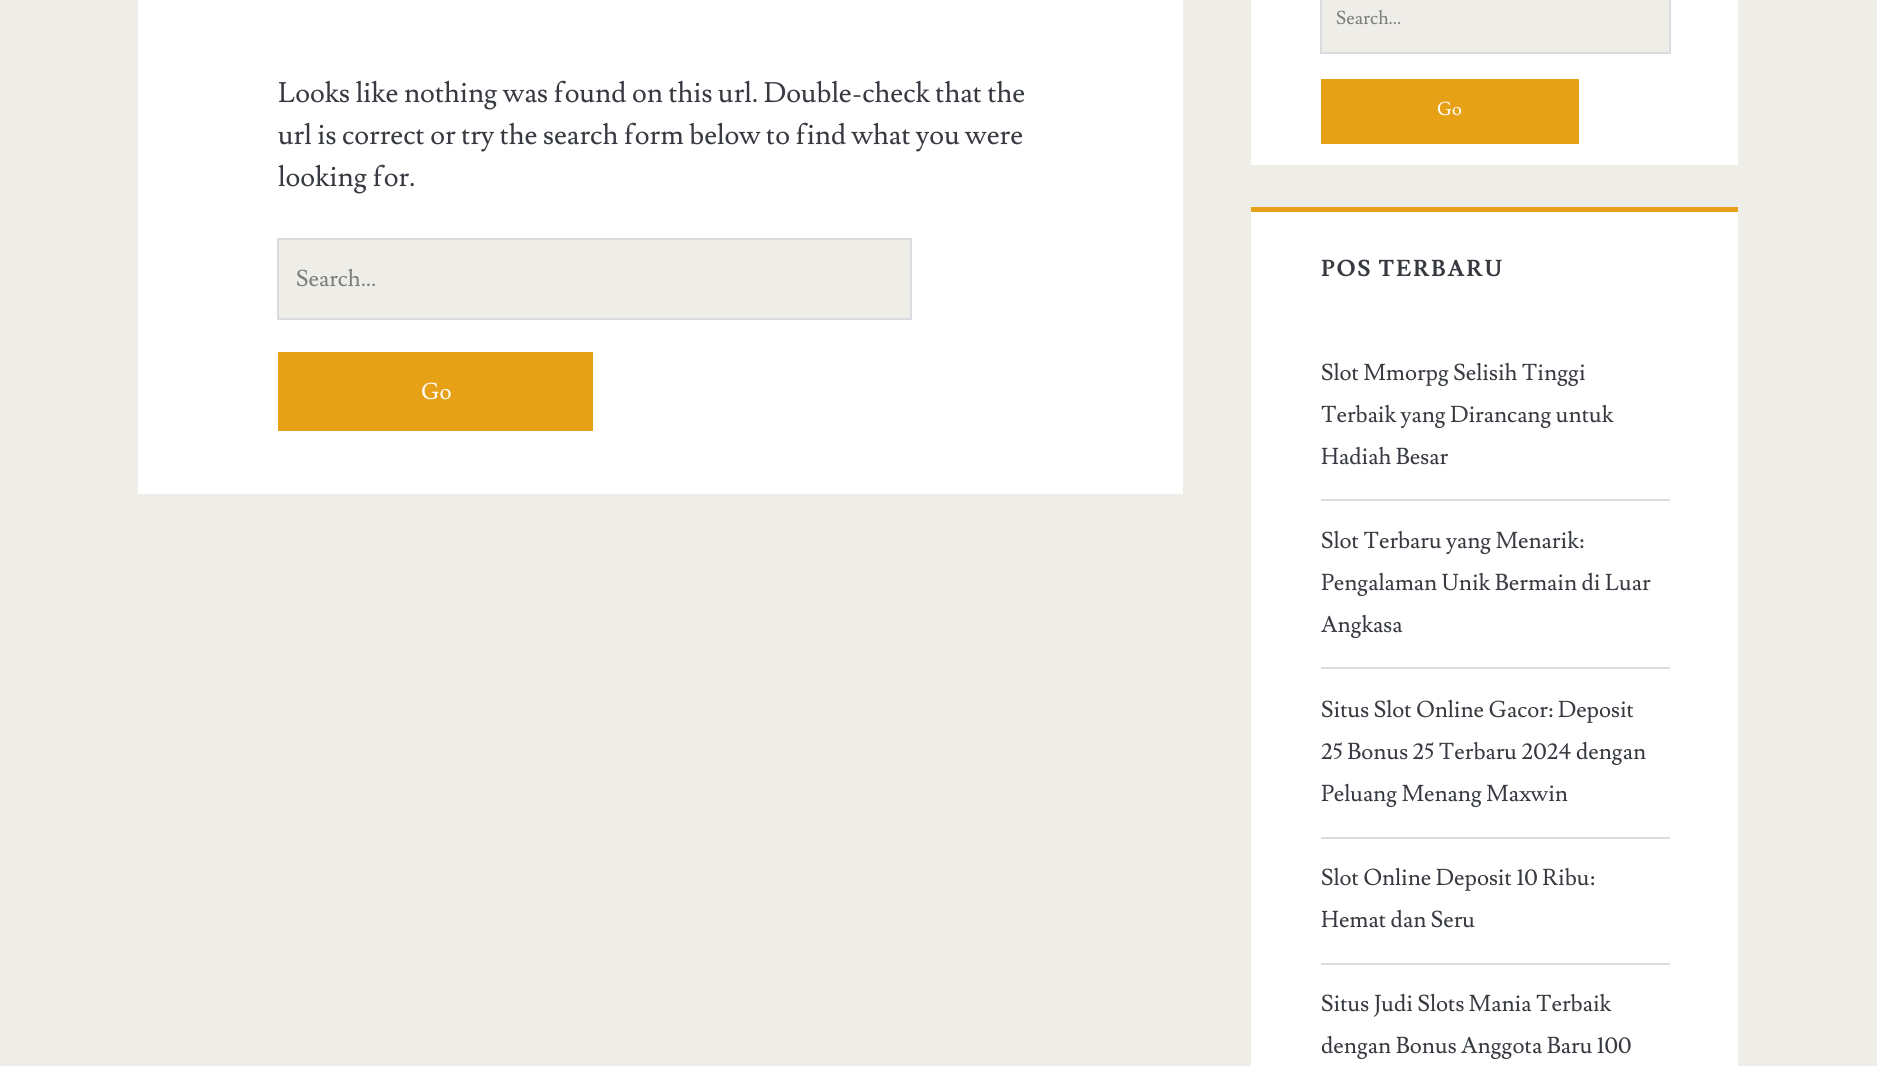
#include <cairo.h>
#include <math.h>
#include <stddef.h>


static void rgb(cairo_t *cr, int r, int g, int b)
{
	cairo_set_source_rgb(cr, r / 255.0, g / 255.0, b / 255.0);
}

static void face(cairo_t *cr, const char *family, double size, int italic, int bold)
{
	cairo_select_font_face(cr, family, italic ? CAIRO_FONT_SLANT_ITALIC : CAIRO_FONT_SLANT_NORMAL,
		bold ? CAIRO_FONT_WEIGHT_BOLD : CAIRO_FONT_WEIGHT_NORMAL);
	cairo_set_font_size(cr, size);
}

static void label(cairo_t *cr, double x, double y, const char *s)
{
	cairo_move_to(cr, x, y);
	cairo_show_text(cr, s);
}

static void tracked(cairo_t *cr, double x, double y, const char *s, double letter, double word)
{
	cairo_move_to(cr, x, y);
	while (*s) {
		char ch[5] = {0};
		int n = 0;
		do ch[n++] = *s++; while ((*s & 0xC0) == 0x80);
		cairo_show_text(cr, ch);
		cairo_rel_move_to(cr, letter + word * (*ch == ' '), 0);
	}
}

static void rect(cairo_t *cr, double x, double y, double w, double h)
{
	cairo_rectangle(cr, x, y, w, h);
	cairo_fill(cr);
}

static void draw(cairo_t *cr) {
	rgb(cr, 238, 237, 232);
	cairo_paint(cr);
	rgb(cr, 255, 255, 255);
	rect(cr, 138, 0, 1045, 494);
	face(cr, "Lusitana", 28, 0, 0);
	rgb(cr, 55, 59, 65);
	label(cr, 278, 102, "Looks like nothing was found on this url. Double-check that the");
	label(cr, 278, 144, "url is correct or try the search form below to find what you were");
	label(cr, 278, 186, "looking for.");
	rgb(cr, 238, 237, 232);
	rect(cr, 279, 240, 631, 78);
	cairo_rectangle(cr, 278, 239, 633, 80);
	rgb(cr, 217, 220, 223);
	cairo_stroke(cr);
	face(cr, "Lusitana", 22.75, 0, 0);
	rgb(cr, 124, 125, 127);
	label(cr, 296, 286, "Search...");
	rgb(cr, 230, 161, 23);
	rect(cr, 278, 352, 315, 79);
	rgb(cr, 255, 255, 255);
	label(cr, 421, 399, "Go");
	rect(cr, 1251, 0, 487, 165);
	rgb(cr, 238, 237, 232);
	rect(cr, 1322, 0, 347, 52);
	cairo_rectangle(cr, 1321, -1, 349, 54);
	rgb(cr, 217, 220, 223);
	cairo_stroke(cr);
	face(cr, "Lusitana", 18.5, 0, 0);
	rgb(cr, 124, 125, 127);
	label(cr, 1336, 24, "Search...");
	rgb(cr, 230, 161, 23);
	rect(cr, 1321, 79, 258, 65);
	rgb(cr, 255, 255, 255);
	label(cr, 1437, 115, "Go");
	rect(cr, 1251, 212, 487, 854);
	rgb(cr, 230, 161, 23);
	rect(cr, 1251, 207, 487, 5);
	face(cr, "Lusitana", 22.75, 0, 1);
	rgb(cr, 55, 59, 65);
	tracked(cr, 1321, 276, "POS TERBARU", 1.75, 0);
	rgb(cr, 217, 220, 223);
	rect(cr, 1321, 499, 349, 2);
	face(cr, "Lusitana", 22.75, 0, 0);
	rgb(cr, 55, 59, 65);
	label(cr, 1321, 380, "Slot Mmorpg Selisih Tinggi");
	label(cr, 1321, 422, "Terbaik yang Dirancang untuk");
	label(cr, 1321, 464, "Hadiah Besar");
	rgb(cr, 217, 220, 223);
	rect(cr, 1321, 667, 349, 2);
	rgb(cr, 55, 59, 65);
	label(cr, 1321, 548, "Slot Terbaru yang Menarik:");
	label(cr, 1321, 590, "Pengalaman Unik Bermain di Luar");
	label(cr, 1321, 632, "Angkasa");
	rgb(cr, 217, 220, 223);
	rect(cr, 1321, 837, 349, 2);
	rgb(cr, 55, 59, 65);
	label(cr, 1321, 717, "Situs Slot Online Gacor: Deposit");
	label(cr, 1321, 759, "25 Bonus 25 Terbaru 2024 dengan");
	label(cr, 1321, 801, "Peluang Menang Maxwin");
	rgb(cr, 217, 220, 223);
	rect(cr, 1321, 963, 349, 2);
	rgb(cr, 55, 59, 65);
	label(cr, 1321, 885, "Slot Online Deposit 10 Ribu:");
	label(cr, 1321, 927, "Hemat dan Seru");
	label(cr, 1321, 1011, "Situs Judi Slots Mania Terbaik");
	label(cr, 1321, 1053, "dengan Bonus Anggota Baru 100");
}

int main(void) {
	cairo_surface_t *surface = cairo_image_surface_create(CAIRO_FORMAT_RGB24, 1877, 1066);
	cairo_t *cr = cairo_create(surface);
	cairo_font_options_t *options = cairo_font_options_create();
	cairo_font_options_set_hint_metrics(options, CAIRO_HINT_METRICS_OFF);
	cairo_font_options_set_hint_style(options, CAIRO_HINT_STYLE_NONE);
	cairo_set_font_options(cr, options);
	cairo_set_miter_limit(cr, 4);
	draw(cr);
	cairo_surface_write_to_png(surface, "render.png");
	cairo_font_options_destroy(options);
	cairo_destroy(cr);
	cairo_surface_destroy(surface);
	return 0;
}
